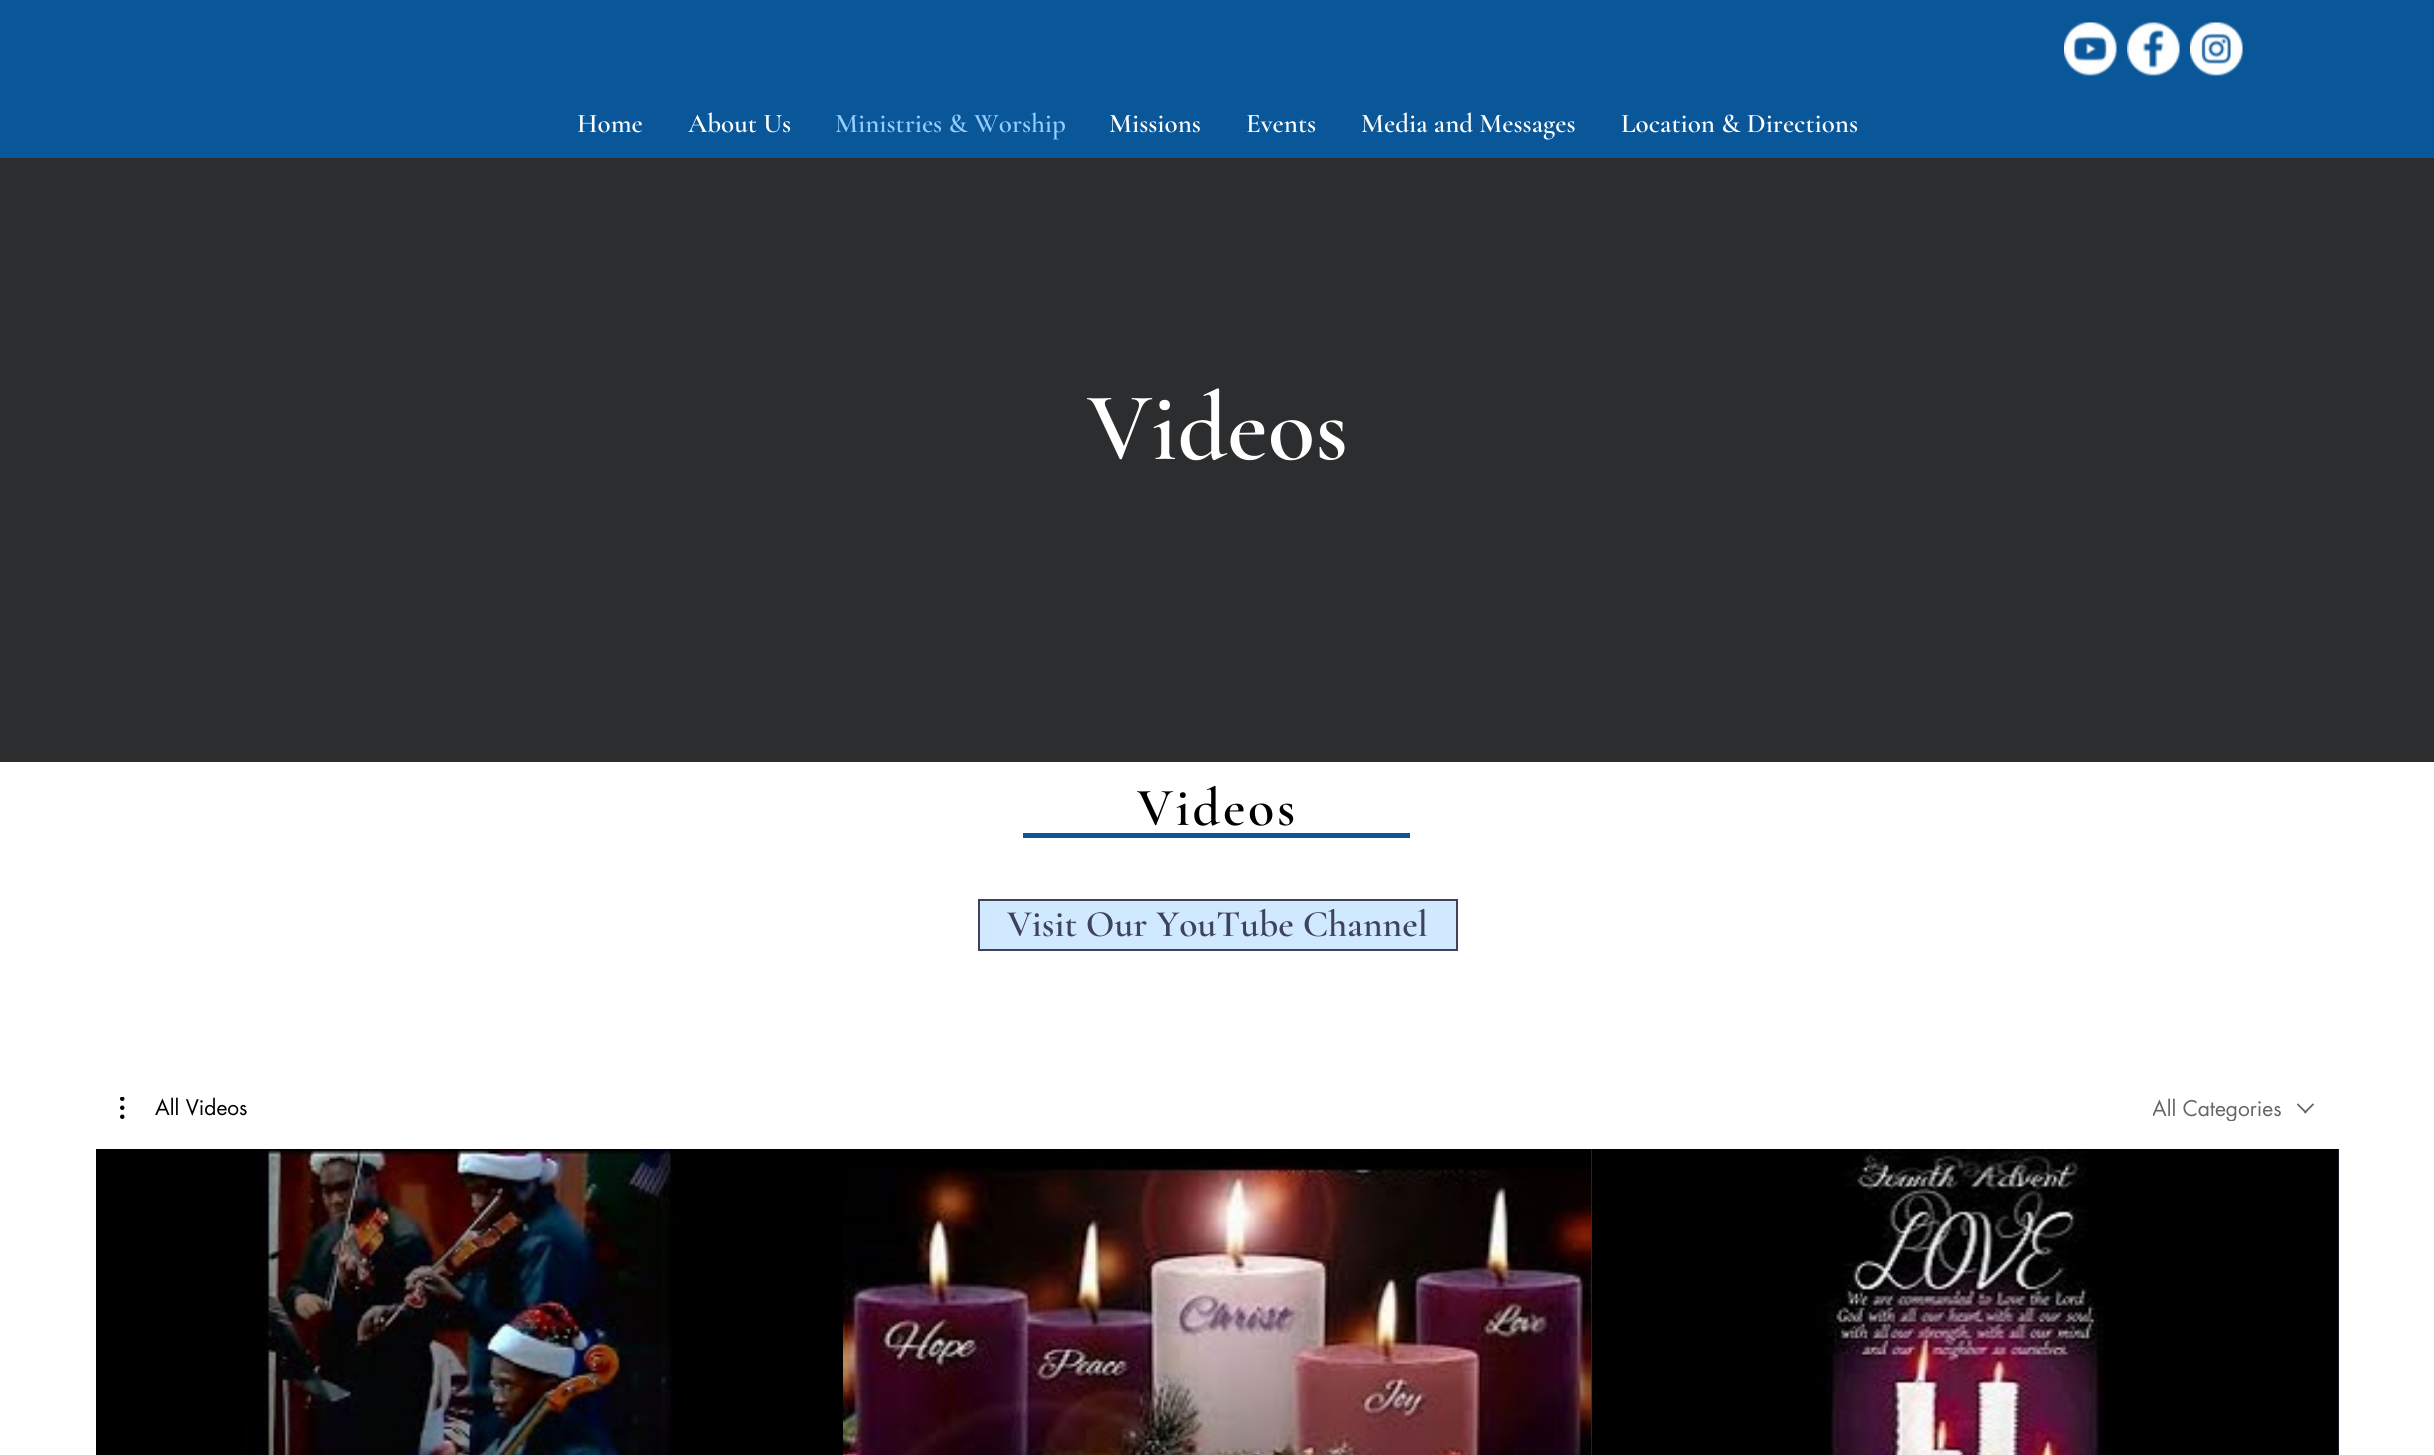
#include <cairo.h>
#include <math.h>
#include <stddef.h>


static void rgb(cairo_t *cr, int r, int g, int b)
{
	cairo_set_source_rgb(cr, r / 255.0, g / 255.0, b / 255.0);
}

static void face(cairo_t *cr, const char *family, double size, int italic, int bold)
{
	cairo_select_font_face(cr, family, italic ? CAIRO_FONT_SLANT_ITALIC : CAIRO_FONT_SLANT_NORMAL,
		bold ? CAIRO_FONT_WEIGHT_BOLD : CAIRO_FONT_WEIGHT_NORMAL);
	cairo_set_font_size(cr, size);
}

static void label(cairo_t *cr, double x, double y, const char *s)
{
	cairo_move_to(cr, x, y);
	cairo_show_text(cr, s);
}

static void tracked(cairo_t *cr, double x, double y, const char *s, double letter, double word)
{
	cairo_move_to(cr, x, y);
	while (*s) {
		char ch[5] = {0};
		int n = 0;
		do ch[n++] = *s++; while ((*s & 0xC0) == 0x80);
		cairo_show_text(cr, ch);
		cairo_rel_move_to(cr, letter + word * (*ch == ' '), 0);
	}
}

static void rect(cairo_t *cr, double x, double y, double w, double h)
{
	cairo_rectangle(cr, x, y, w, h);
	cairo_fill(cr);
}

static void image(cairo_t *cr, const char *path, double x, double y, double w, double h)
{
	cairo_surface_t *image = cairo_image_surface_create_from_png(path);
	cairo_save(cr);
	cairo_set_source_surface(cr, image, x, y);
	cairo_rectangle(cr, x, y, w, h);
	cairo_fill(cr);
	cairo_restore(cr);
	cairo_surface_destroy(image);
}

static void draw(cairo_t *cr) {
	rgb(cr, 44, 45, 46);
	cairo_paint(cr);
	rgb(cr, 9, 86, 153);
	rect(cr, 0, 0, 2434, 158);
	image(cr, "image0.png", 2064, 22, 53, 54);
	image(cr, "image1.png", 2127, 22, 53, 54);
	image(cr, "image2.png", 2190, 22, 53, 54);
	face(cr, "Cormorant Garamond SemiBold", 27, 0, 0);
	rgb(cr, 255, 255, 255);
	label(cr, 577, 132, "Home");
	label(cr, 688, 132, "About Us");
	rgb(cr, 148, 205, 255);
	label(cr, 835, 132, "Ministries & Worship");
	rgb(cr, 255, 255, 255);
	label(cr, 1109, 132, "Missions");
	label(cr, 1246, 132, "Events");
	label(cr, 1361, 132, "Media and Messages");
	label(cr, 1621, 132, "Location & Directions");
	face(cr, "Cormorant Garamond SemiBold", 97.5, 0, 0);
	label(cr, 1087, 459, "Videos");
	rect(cr, 0, 762, 2434, 693);
	face(cr, "Cormorant Garamond SemiBold", 54, 0, 0);
	rgb(cr, 0, 0, 0);
	tracked(cr, 1137, 825, "Videos", 2.75, 0);
	rgb(cr, 9, 86, 153);
	rect(cr, 1023, 833, 387, 5);
	rgb(cr, 208, 233, 255);
	cairo_rectangle(cr, 979, 900, 478, 50);
	cairo_fill_preserve(cr);
	rgb(cr, 63, 67, 89);
	cairo_stroke(cr);
	face(cr, "Cormorant Garamond SemiBold", 37.5, 0, 0);
	label(cr, 1007, 936, "Visit Our YouTube Channel");
	image(cr, "image3.png", 120, 1097, 5, 22);
	face(cr, "futura", 21, 0, 0);
	rgb(cr, 0, 0, 0);
	label(cr, 155, 1115, "All Videos");
	cairo_save(cr);
	cairo_rectangle(cr, 2153, 1095, 129, 26);
	cairo_clip(cr);
	rgb(cr, 102, 102, 102);
	label(cr, 2152, 1116, "All Categories");
	cairo_restore(cr);
	image(cr, "image4.png", 2297, 1103, 17, 11);
	image(cr, "image5.png", 96, 1149, 747, 306);
	image(cr, "image6.png", 1591, 1149, 1, 306);
	image(cr, "image7.png", 843, 1149, 749, 306);
	rgb(cr, 53, 70, 92);
	rect(cr, 2338, 1149, 1, 306);
	image(cr, "image8.png", 1591, 1149, 748, 306);
	image(cr, "image9.png", 1591, 1149, 748, 306);
}

int main(void) {
	cairo_surface_t *surface = cairo_image_surface_create(CAIRO_FORMAT_RGB24, 2434, 1455);
	cairo_t *cr = cairo_create(surface);
	cairo_font_options_t *options = cairo_font_options_create();
	cairo_font_options_set_hint_metrics(options, CAIRO_HINT_METRICS_OFF);
	cairo_font_options_set_hint_style(options, CAIRO_HINT_STYLE_NONE);
	cairo_set_font_options(cr, options);
	cairo_set_miter_limit(cr, 4);
	draw(cr);
	cairo_surface_write_to_png(surface, "render.png");
	cairo_font_options_destroy(options);
	cairo_destroy(cr);
	cairo_surface_destroy(surface);
	return 0;
}
